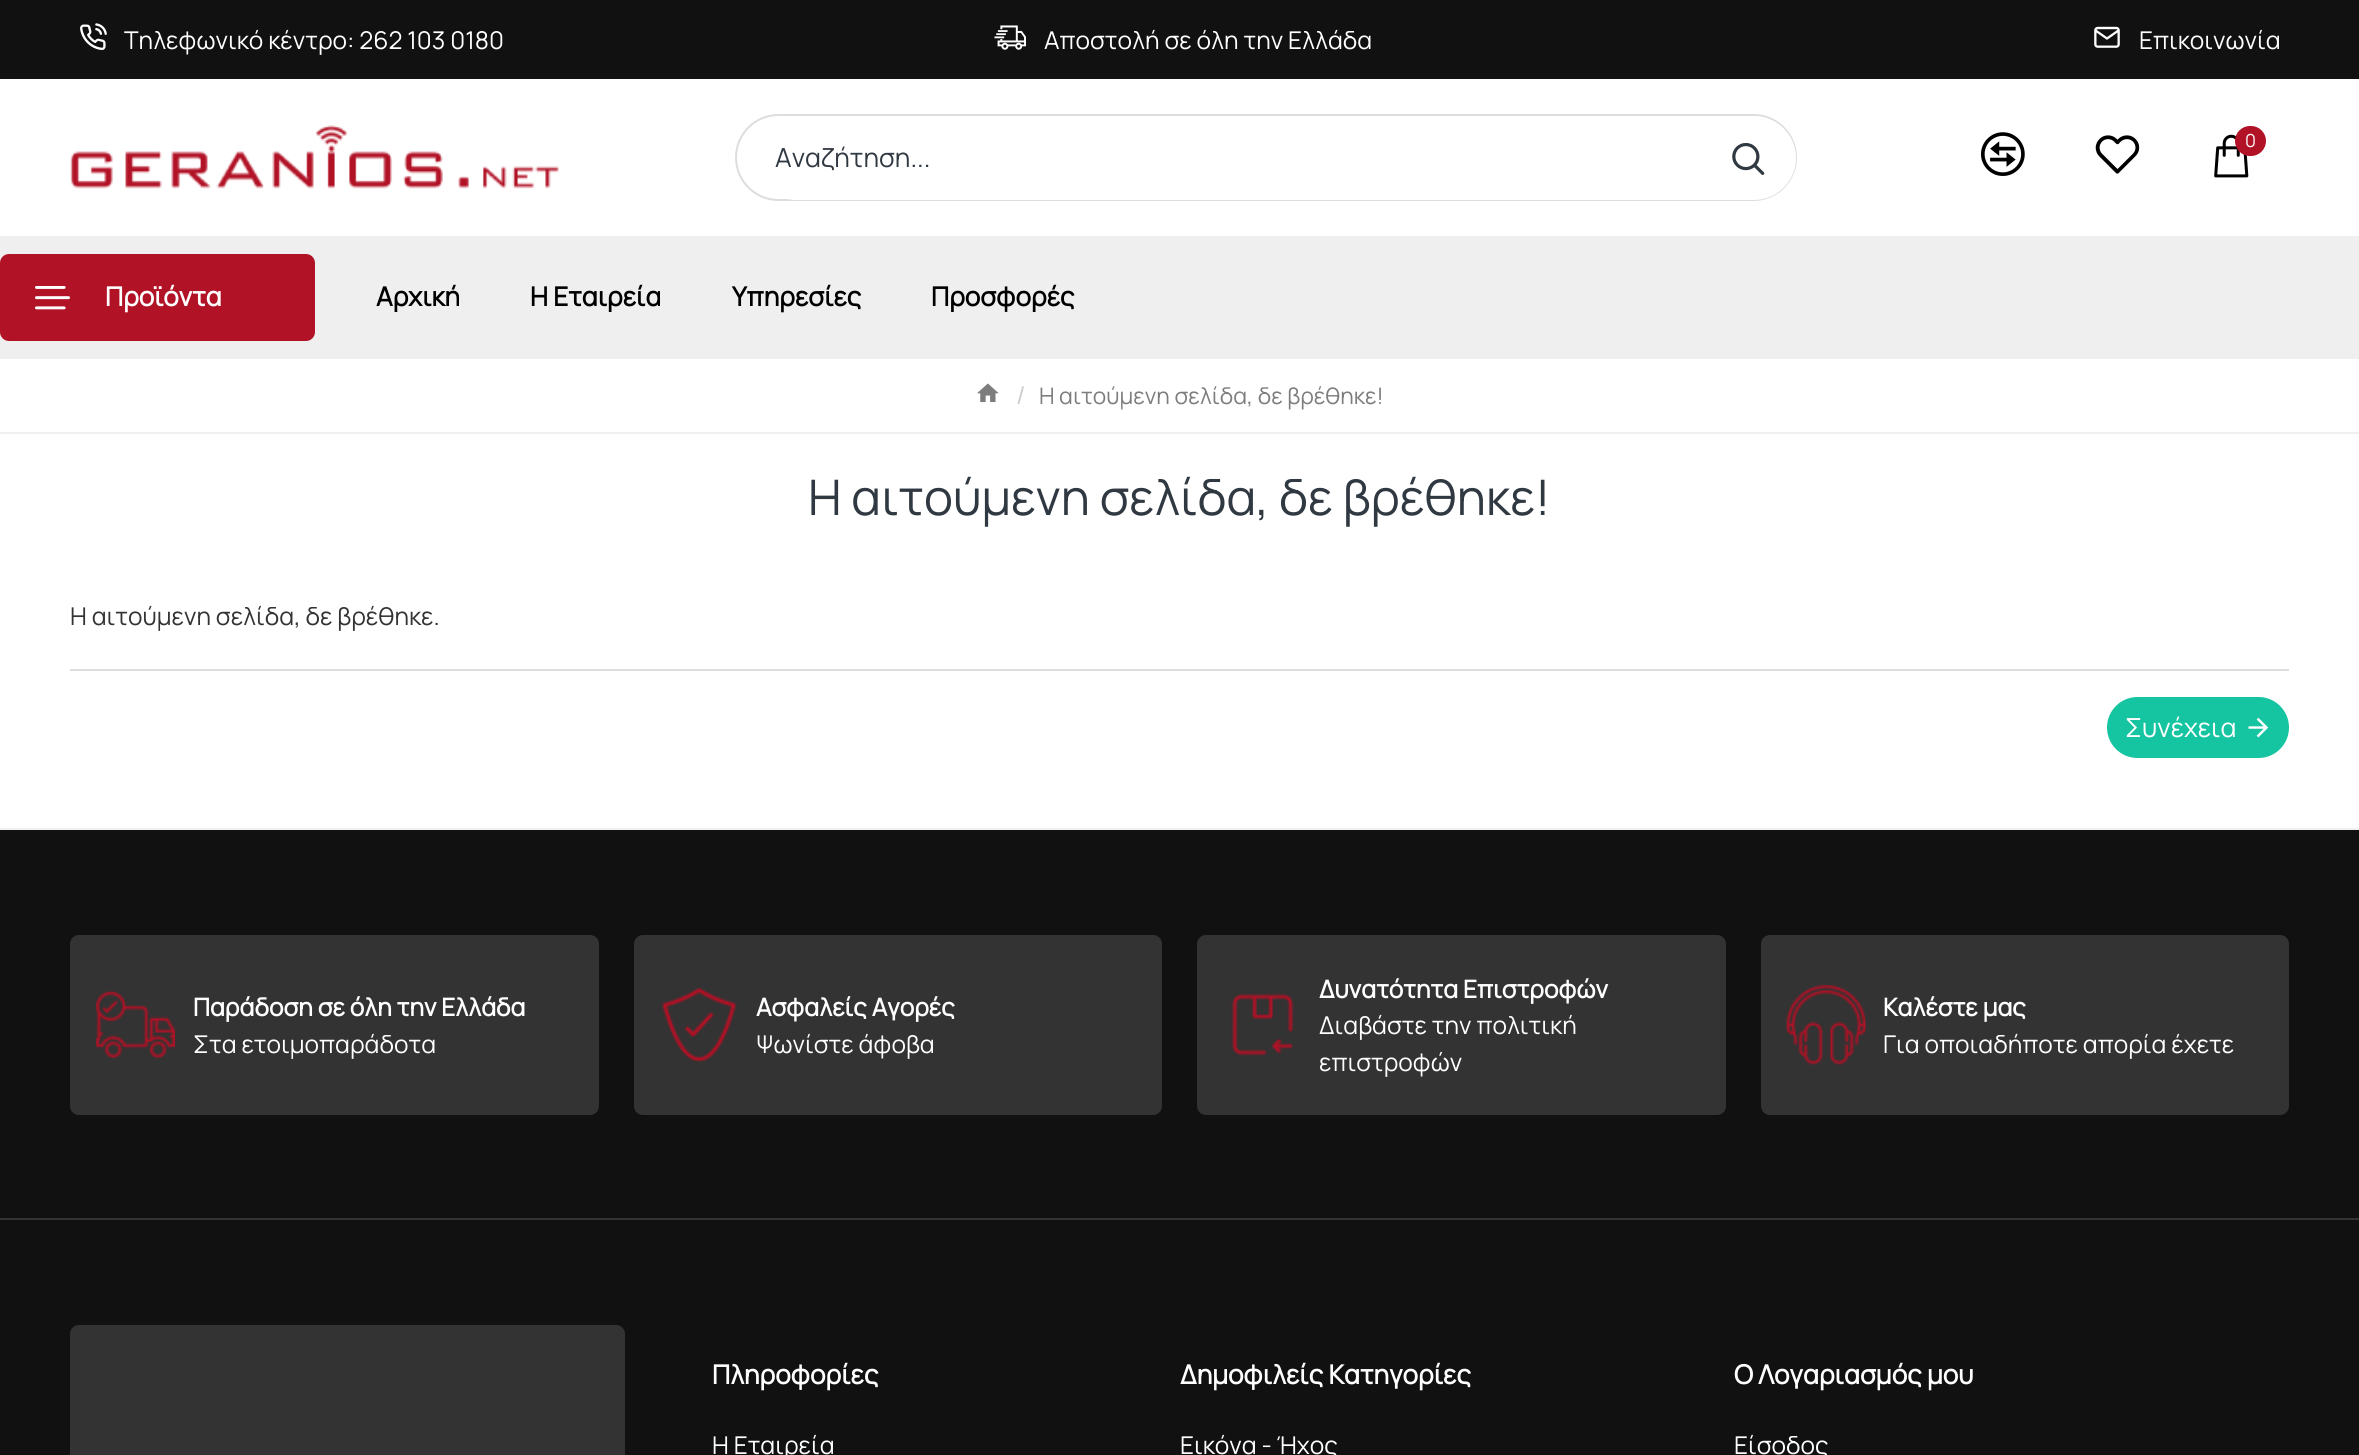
#include <cairo.h>
#include <math.h>
#include <stddef.h>


static void rgb(cairo_t *cr, int r, int g, int b)
{
	cairo_set_source_rgb(cr, r / 255.0, g / 255.0, b / 255.0);
}

static void face(cairo_t *cr, const char *family, double size, int italic, int bold)
{
	cairo_select_font_face(cr, family, italic ? CAIRO_FONT_SLANT_ITALIC : CAIRO_FONT_SLANT_NORMAL,
		bold ? CAIRO_FONT_WEIGHT_BOLD : CAIRO_FONT_WEIGHT_NORMAL);
	cairo_set_font_size(cr, size);
}

static void label(cairo_t *cr, double x, double y, const char *s)
{
	cairo_move_to(cr, x, y);
	cairo_show_text(cr, s);
}

static void rect(cairo_t *cr, double x, double y, double w, double h)
{
	cairo_rectangle(cr, x, y, w, h);
	cairo_fill(cr);
}

static void rrect(cairo_t *cr, double x, double y, double w, double h, double r)
{
	cairo_new_sub_path(cr);
	cairo_arc(cr, x + w - r, y + h - r, r, 0, M_PI / 2);
	cairo_arc(cr, x + r, y + h - r, r, M_PI / 2, M_PI);
	cairo_arc(cr, x + r, y + r, r, M_PI, 1.5 * M_PI);
	cairo_arc(cr, x + w - r, y + r, r, 1.5 * M_PI, 2 * M_PI);
	cairo_close_path(cr);
}

static void image(cairo_t *cr, const char *path, double x, double y, double w, double h)
{
	cairo_surface_t *image = cairo_image_surface_create_from_png(path);
	cairo_save(cr);
	cairo_set_source_surface(cr, image, x, y);
	cairo_rectangle(cr, x, y, w, h);
	cairo_fill(cr);
	cairo_restore(cr);
	cairo_surface_destroy(image);
}

static void draw(cairo_t *cr) {
	rgb(cr, 255, 255, 255);
	cairo_paint(cr);
	rgb(cr, 17, 17, 17);
	rect(cr, 0, 0, 2359, 79);
	image(cr, "image0.png", 80, 23, 27, 27);
	face(cr, "Manrope", 24.5, 0, 0);
	rgb(cr, 255, 255, 255);
	label(cr, 124, 49, "Τηλεφωνικό κέντρο: 262 103 0180");
	image(cr, "image1.png", 994, 25, 32, 25);
	label(cr, 1044, 49, "Αποστολή σε όλη την Ελλάδα");
	image(cr, "image2.png", 2094, 26, 26, 22);
	label(cr, 2139, 49, "Επικοινωνία");
	image(cr, "image3.png", 70, 125, 489, 64);
	image(cr, "image4.png", 1981, 132, 44, 44);
	image(cr, "image5.png", 2095, 135, 45, 39);
	image(cr, "image6.png", 2214, 134, 35, 44);
	rgb(cr, 177, 18, 38);
	rrect(cr, 2235, 126, 31, 30, 15);
	cairo_fill(cr);
	face(cr, "Manrope", 18, 0, 0);
	rgb(cr, 255, 255, 255);
	label(cr, 2245, 147, "0");
	rrect(cr, 736, 115, 1060, 85, 42.5);
	rgb(cr, 221, 221, 221);
	cairo_stroke(cr);
	rgb(cr, 255, 255, 255);
	cairo_new_path(cr);
	cairo_move_to(cr, 796, 116);
	cairo_line_to(cr, 1717, 116);
	cairo_line_to(cr, 1717, 200);
	cairo_line_to(cr, 796, 200);
	cairo_curve_to(cr, 773, 200, 754, 181, 754, 158);
	cairo_curve_to(cr, 754, 135, 773, 116, 796, 116);
	cairo_close_path(cr);
	cairo_fill(cr);
	face(cr, "Manrope", 26.25, 0, 0);
	rgb(cr, 48, 56, 65);
	label(cr, 775, 167, "Αναζήτηση...");
	rgb(cr, 255, 255, 255);
	cairo_new_path(cr);
	cairo_move_to(cr, 1717, 116);
	cairo_line_to(cr, 1754, 116);
	cairo_curve_to(cr, 1777, 116, 1796, 135, 1796, 158);
	cairo_curve_to(cr, 1796, 181, 1777, 200, 1754, 200);
	cairo_line_to(cr, 1717, 200);
	cairo_close_path(cr);
	cairo_fill(cr);
	image(cr, "image7.png", 1732, 142, 33, 33);
	rgb(cr, 239, 239, 239);
	rect(cr, 0, 236, 2359, 123);
	rgb(cr, 177, 18, 38);
	rrect(cr, 0, 254, 315, 87, 9);
	cairo_fill(cr);
	image(cr, "image8.png", 35, 286, 35, 24);
	face(cr, "Manrope", 26.25, 0, 1);
	rgb(cr, 255, 255, 255);
	label(cr, 105, 306, "Προϊόντα");
	cairo_save(cr);
	cairo_rectangle(cr, 376, 284, 84, 28);
	cairo_clip(cr);
	rgb(cr, 0, 0, 0);
	label(cr, 376, 306, "Αρχική");
	cairo_restore(cr);
	cairo_save(cr);
	cairo_rectangle(cr, 530, 284, 132, 28);
	cairo_clip(cr);
	rgb(cr, 0, 0, 0);
	label(cr, 530, 306, "Η Εταιρεία");
	cairo_restore(cr);
	rgb(cr, 0, 0, 0);
	label(cr, 732, 306, "Υπηρεσίες");
	cairo_save(cr);
	cairo_rectangle(cr, 931, 284, 144, 28);
	cairo_clip(cr);
	label(cr, 931, 306, "Προσφορές");
	cairo_restore(cr);
	rgb(cr, 240, 240, 240);
	rect(cr, 0, 432, 2359, 2);
	image(cr, "image9.png", 977, 383, 22, 20);
	face(cr, "Manrope", 24.5, 0, 0);
	rgb(cr, 204, 204, 204);
	label(cr, 1016, 404, "/");
	face(cr, "Manrope", 22.75, 0, 0);
	rgb(cr, 125, 125, 125);
	label(cr, 1039, 404, "Η αιτούμενη σελίδα, δε βρέθηκε!");
	face(cr, "Manrope", 49, 0, 0);
	rgb(cr, 48, 56, 65);
	label(cr, 808, 515, "Η αιτούμενη σελίδα, δε βρέθηκε!");
	face(cr, "Manrope", 24.5, 0, 0);
	rgb(cr, 51, 51, 51);
	label(cr, 70, 625, "Η αιτούμενη σελίδα, δε βρέθηκε.");
	rgb(cr, 221, 221, 221);
	rect(cr, 70, 669, 2219, 2);
	rgb(cr, 21, 196, 160);
	rrect(cr, 2107, 697, 182, 61, 30.5);
	cairo_fill(cr);
	face(cr, "Manrope", 26.25, 0, 0);
	rgb(cr, 255, 255, 255);
	label(cr, 2125, 737, "Συνέχεια");
	image(cr, "image10.png", 2248, 717, 21, 21);
	rgb(cr, 240, 240, 240);
	rect(cr, 0, 828, 2359, 2);
	rgb(cr, 17, 17, 17);
	rect(cr, 0, 830, 2359, 388);
	rgb(cr, 51, 51, 51);
	rect(cr, 0, 1218, 2359, 2);
	rrect(cr, 70, 935, 529, 180, 9);
	cairo_fill(cr);
	image(cr, "image11.png", 96, 990, 79, 69);
	face(cr, "Manrope", 24.5, 0, 1);
	rgb(cr, 255, 255, 255);
	label(cr, 193, 1016, "Παράδοση σε όλη την Ελλάδα");
	face(cr, "Manrope", 24.5, 0, 0);
	label(cr, 193, 1053, "Στα ετοιμοπαράδοτα");
	rgb(cr, 51, 51, 51);
	rrect(cr, 634, 935, 528, 180, 9);
	cairo_fill(cr);
	image(cr, "image12.png", 661, 987, 76, 76);
	face(cr, "Manrope", 24.5, 0, 1);
	rgb(cr, 255, 255, 255);
	label(cr, 756, 1016, "Ασφαλείς Αγορές");
	face(cr, "Manrope", 24.5, 0, 0);
	label(cr, 756, 1053, "Ψωνίστε άφοβα");
	rgb(cr, 51, 51, 51);
	rrect(cr, 1197, 935, 529, 180, 9);
	cairo_fill(cr);
	image(cr, "image13.png", 1231, 993, 63, 63);
	face(cr, "Manrope", 24.5, 0, 1);
	rgb(cr, 255, 255, 255);
	label(cr, 1319, 998, "Δυνατότητα Επιστροφών");
	face(cr, "Manrope", 24.5, 0, 0);
	label(cr, 1319, 1034, "Διαβάστε την πολιτική");
	label(cr, 1319, 1071, "επιστροφών");
	rgb(cr, 51, 51, 51);
	rrect(cr, 1761, 935, 528, 180, 9);
	cairo_fill(cr);
	image(cr, "image14.png", 1786, 985, 80, 80);
	face(cr, "Manrope", 24.5, 0, 1);
	rgb(cr, 255, 255, 255);
	label(cr, 1883, 1016, "Καλέστε μας");
	face(cr, "Manrope", 24.5, 0, 0);
	label(cr, 1883, 1053, "Για οποιαδήποτε απορία έχετε");
	rgb(cr, 17, 17, 17);
	rect(cr, 0, 1220, 2359, 235);
	rgb(cr, 51, 51, 51);
	rrect(cr, 70, 1325, 555, 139, 9);
	cairo_fill(cr);
	face(cr, "Manrope", 26.25, 0, 1);
	rgb(cr, 255, 255, 255);
	label(cr, 712, 1384, "Πληροφορίες");
	face(cr, "Manrope", 24.5, 0, 0);
	label(cr, 712, 1454, "Η Εταιρεία");
	face(cr, "Manrope", 26.25, 0, 1);
	label(cr, 1180, 1384, "Δημοφιλείς Κατηγορίες");
	face(cr, "Manrope", 24.5, 0, 0);
	label(cr, 1180, 1454, "Εικόνα - Ήχος");
	face(cr, "Manrope", 26.25, 0, 1);
	label(cr, 1734, 1384, "Ο Λογαριασμός μου");
	face(cr, "Manrope", 24.5, 0, 0);
	label(cr, 1734, 1454, "Είσοδος");
}

int main(void) {
	cairo_surface_t *surface = cairo_image_surface_create(CAIRO_FORMAT_RGB24, 2359, 1455);
	cairo_t *cr = cairo_create(surface);
	cairo_font_options_t *options = cairo_font_options_create();
	cairo_font_options_set_hint_metrics(options, CAIRO_HINT_METRICS_OFF);
	cairo_font_options_set_hint_style(options, CAIRO_HINT_STYLE_NONE);
	cairo_set_font_options(cr, options);
	cairo_set_miter_limit(cr, 4);
	draw(cr);
	cairo_surface_write_to_png(surface, "render.png");
	cairo_font_options_destroy(options);
	cairo_destroy(cr);
	cairo_surface_destroy(surface);
	return 0;
}
